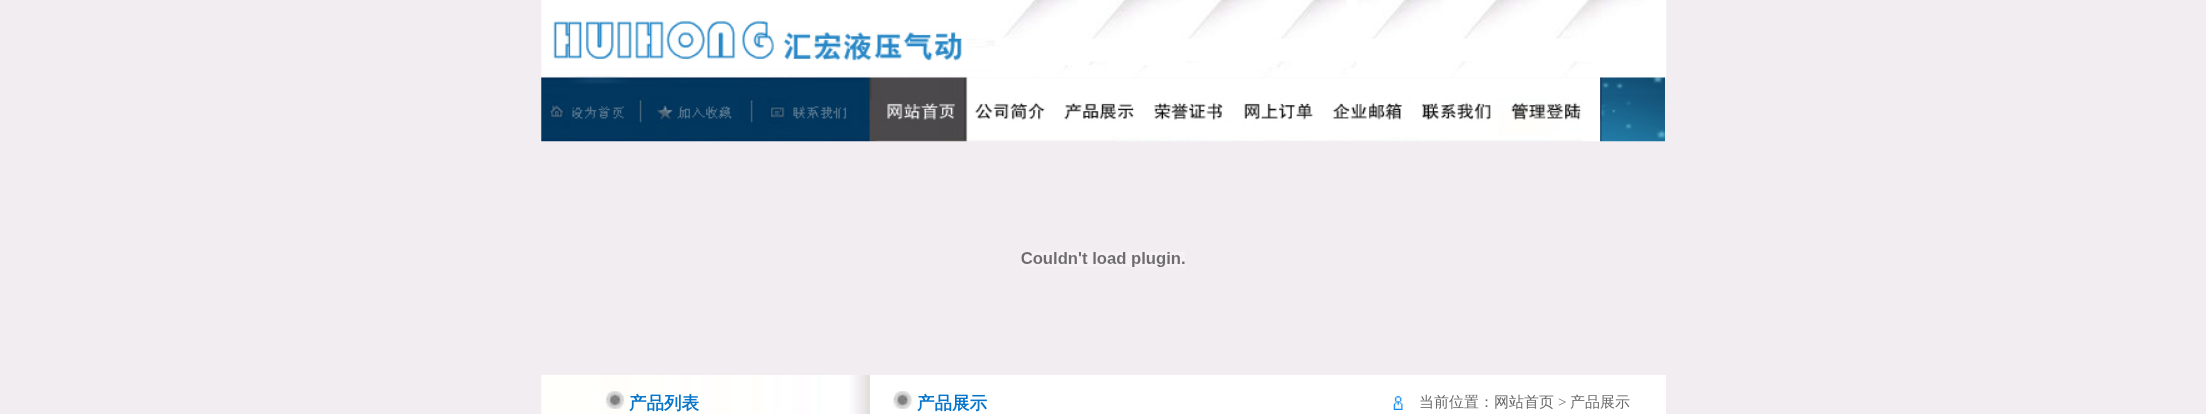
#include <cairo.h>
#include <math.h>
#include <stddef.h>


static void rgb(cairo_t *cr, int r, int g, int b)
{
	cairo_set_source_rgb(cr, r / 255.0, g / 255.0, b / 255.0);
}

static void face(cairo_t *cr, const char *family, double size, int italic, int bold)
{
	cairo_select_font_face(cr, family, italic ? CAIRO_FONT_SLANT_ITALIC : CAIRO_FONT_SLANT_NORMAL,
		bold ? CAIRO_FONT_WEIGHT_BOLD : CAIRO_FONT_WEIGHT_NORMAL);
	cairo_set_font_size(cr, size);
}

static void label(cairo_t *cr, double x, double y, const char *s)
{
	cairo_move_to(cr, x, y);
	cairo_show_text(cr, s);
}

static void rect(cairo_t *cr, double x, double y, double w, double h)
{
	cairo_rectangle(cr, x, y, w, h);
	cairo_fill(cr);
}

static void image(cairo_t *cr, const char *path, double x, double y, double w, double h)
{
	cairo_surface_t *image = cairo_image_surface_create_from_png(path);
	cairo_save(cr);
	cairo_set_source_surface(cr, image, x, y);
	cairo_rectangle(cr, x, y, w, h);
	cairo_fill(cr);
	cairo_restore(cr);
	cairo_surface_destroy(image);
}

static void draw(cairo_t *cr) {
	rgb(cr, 242, 237, 241);
	cairo_paint(cr);
	image(cr, "image0.png", 541, 0, 1126, 78);
	image(cr, "image1.png", 541, 77, 1124, 65);
	image(cr, "image2.png", 1021, 252, 164, 15);
	image(cr, "image3.png", 541, 375, 329, 39);
	image(cr, "image4.png", 605, 391, 20, 18);
	face(cr, "WenQuanYi Zen Hei", 17.5, 0, 1);
	rgb(cr, 6, 116, 201);
	label(cr, 629, 409, "产品列表");
	rgb(cr, 255, 255, 255);
	rect(cr, 870, 375, 796, 39);
	image(cr, "image5.png", 892, 391, 21, 18);
	rgb(cr, 6, 116, 201);
	label(cr, 917, 409, "产品展示");
	image(cr, "image6.png", 1393, 396, 10, 14);
	face(cr, "WenQuanYi Zen Hei Medium", 15, 0, 0);
	rgb(cr, 102, 102, 102);
	label(cr, 1419, 407, "当前位置：网站首页");
	face(cr, "Liberation Serif", 15, 0, 0);
	label(cr, 1558, 407, ">");
	face(cr, "WenQuanYi Zen Hei Medium", 15, 0, 0);
	label(cr, 1570, 407, "产品展示");
}

int main(void) {
	cairo_surface_t *surface = cairo_image_surface_create(CAIRO_FORMAT_RGB24, 2206, 414);
	cairo_t *cr = cairo_create(surface);
	cairo_font_options_t *options = cairo_font_options_create();
	cairo_font_options_set_hint_metrics(options, CAIRO_HINT_METRICS_OFF);
	cairo_font_options_set_hint_style(options, CAIRO_HINT_STYLE_NONE);
	cairo_set_font_options(cr, options);
	cairo_set_miter_limit(cr, 4);
	draw(cr);
	cairo_surface_write_to_png(surface, "render.png");
	cairo_font_options_destroy(options);
	cairo_destroy(cr);
	cairo_surface_destroy(surface);
	return 0;
}
